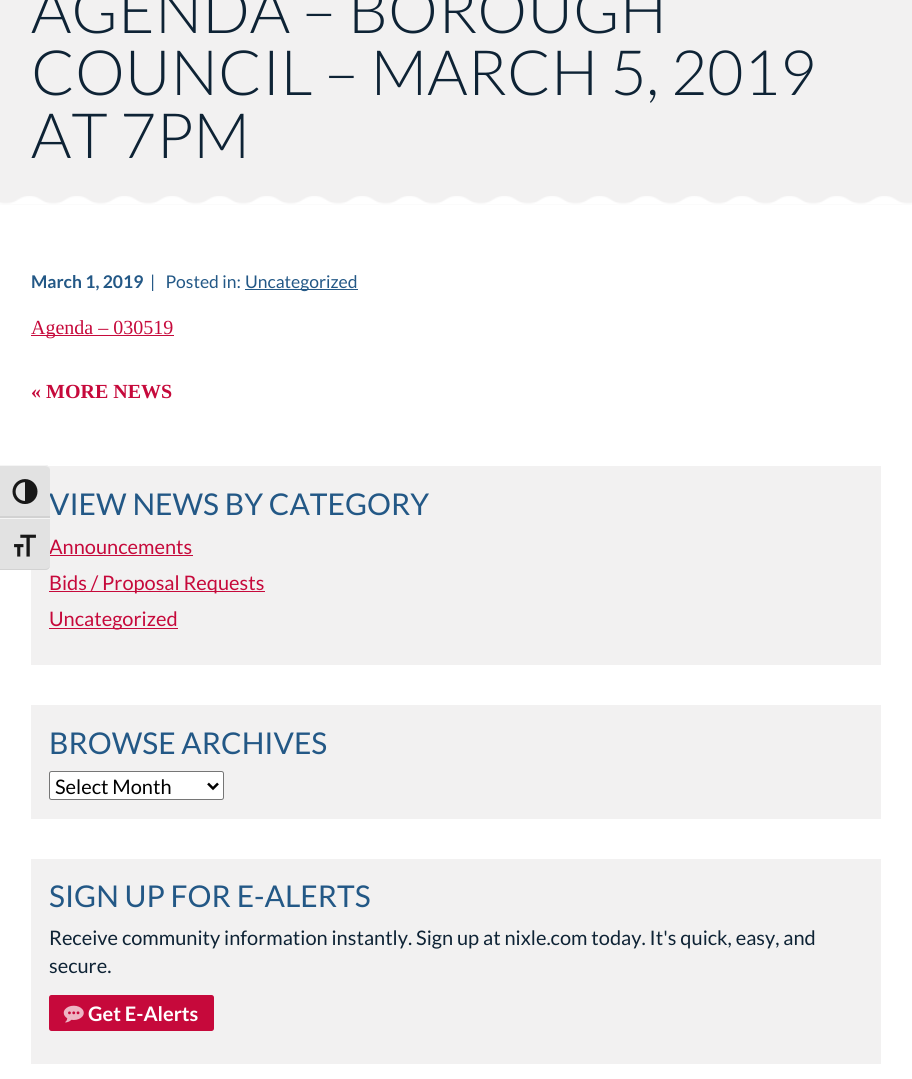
#include <cairo.h>
#include <math.h>
#include <stddef.h>


static void rgb(cairo_t *cr, int r, int g, int b)
{
	cairo_set_source_rgb(cr, r / 255.0, g / 255.0, b / 255.0);
}

static void face(cairo_t *cr, const char *family, double size, int italic, int bold)
{
	cairo_select_font_face(cr, family, italic ? CAIRO_FONT_SLANT_ITALIC : CAIRO_FONT_SLANT_NORMAL,
		bold ? CAIRO_FONT_WEIGHT_BOLD : CAIRO_FONT_WEIGHT_NORMAL);
	cairo_set_font_size(cr, size);
}

static void label(cairo_t *cr, double x, double y, const char *s)
{
	cairo_move_to(cr, x, y);
	cairo_show_text(cr, s);
}

static void rect(cairo_t *cr, double x, double y, double w, double h)
{
	cairo_rectangle(cr, x, y, w, h);
	cairo_fill(cr);
}

static void rrect(cairo_t *cr, double x, double y, double w, double h, double r)
{
	cairo_new_sub_path(cr);
	cairo_arc(cr, x + w - r, y + h - r, r, 0, M_PI / 2);
	cairo_arc(cr, x + r, y + h - r, r, M_PI / 2, M_PI);
	cairo_arc(cr, x + r, y + r, r, M_PI, 1.5 * M_PI);
	cairo_arc(cr, x + w - r, y + r, r, 1.5 * M_PI, 2 * M_PI);
	cairo_close_path(cr);
}

static void image(cairo_t *cr, const char *path, double x, double y, double w, double h)
{
	cairo_surface_t *image = cairo_image_surface_create_from_png(path);
	cairo_save(cr);
	cairo_set_source_surface(cr, image, x, y);
	cairo_rectangle(cr, x, y, w, h);
	cairo_fill(cr);
	cairo_restore(cr);
	cairo_surface_destroy(image);
}

static void draw(cairo_t *cr) {
	rgb(cr, 242, 241, 241);
	cairo_paint(cr);
	rgb(cr, 255, 255, 255);
	rect(cr, 0, 205, 912, 874);
	rgb(cr, 242, 241, 241);
	rect(cr, 31, 466, 850, 199);
	face(cr, "Lato", 30, 0, 0);
	rgb(cr, 35, 88, 134);
	label(cr, 49, 515, "VIEW NEWS BY CATEGORY");
	rgb(cr, 226, 226, 226);
	cairo_new_path(cr);
	cairo_move_to(cr, 0, 465);
	cairo_line_to(cr, 45, 465);
	cairo_curve_to(cr, 48, 465, 50, 467, 50, 470);
	cairo_line_to(cr, 50, 518);
	cairo_line_to(cr, 0, 518);
	cairo_close_path(cr);
	cairo_fill(cr);
	rgb(cr, 245, 245, 245);
	cairo_new_path(cr);
	cairo_move_to(cr, 0, 465);
	cairo_line_to(cr, 0, 466);
	cairo_line_to(cr, 45, 466);
	cairo_curve_to(cr, 48, 466, 50, 468, 50, 470);
	cairo_curve_to(cr, 50, 467, 48, 465, 45, 465);
	cairo_close_path(cr);
	cairo_fill(cr);
	rgb(cr, 210, 210, 210);
	rect(cr, 0, 516, 50, 2);
	image(cr, "image0.png", 12, 479, 26, 25);
	face(cr, "Lato", 20, 0, 0);
	rgb(cr, 198, 9, 59);
	label(cr, 49, 554, "Announcements");
	rect(cr, 49, 555, 144, 1);
	rgb(cr, 226, 226, 226);
	cairo_new_path(cr);
	cairo_move_to(cr, 0, 518);
	cairo_line_to(cr, 50, 518);
	cairo_line_to(cr, 50, 565);
	cairo_curve_to(cr, 50, 568, 48, 570, 45, 570);
	cairo_line_to(cr, 0, 570);
	cairo_close_path(cr);
	cairo_fill(cr);
	rgb(cr, 245, 245, 245);
	rect(cr, 0, 518, 50, 1);
	rgb(cr, 210, 210, 210);
	cairo_new_path(cr);
	cairo_move_to(cr, 0, 569);
	cairo_line_to(cr, 0, 570);
	cairo_line_to(cr, 45, 570);
	cairo_curve_to(cr, 48, 570, 50, 568, 50, 565);
	cairo_curve_to(cr, 50, 567, 48, 569, 45, 569);
	cairo_close_path(cr);
	cairo_fill(cr);
	image(cr, "image1.png", 14, 534, 22, 23);
	face(cr, "Lato Light", 62.5, 0, 0);
	rgb(cr, 14, 35, 53);
	label(cr, 31, 33, "AGENDA – BOROUGH");
	label(cr, 31, 95, "COUNCIL – MARCH 5, 2019");
	label(cr, 31, 158, "AT 7PM");
	image(cr, "image2.png", 0, 196, 912, 9);
	face(cr, "Lato", 17.5, 0, 1);
	rgb(cr, 35, 88, 134);
	label(cr, 31, 288, "March 1, 2019");
	face(cr, "Lato", 17.5, 0, 0);
	label(cr, 150, 288, "|   Posted in:");
	rect(cr, 245, 289, 113, 1);
	label(cr, 245, 288, "Uncategorized");
	rgb(cr, 198, 9, 59);
	rect(cr, 31, 335, 143, 1);
	face(cr, "Liberation Serif", 20, 0, 0);
	label(cr, 31, 334, "Agenda – 030519");
	face(cr, "Liberation Serif", 20, 0, 1);
	label(cr, 31, 398, "« MORE NEWS");
	rect(cr, 49, 591, 216, 1);
	face(cr, "Lato", 20, 0, 0);
	label(cr, 49, 590, "Bids / Proposal Requests");
	rect(cr, 49, 628, 129, 1);
	label(cr, 49, 626, "Uncategorized");
	rgb(cr, 242, 241, 241);
	rect(cr, 31, 705, 850, 114);
	face(cr, "Lato", 30, 0, 0);
	rgb(cr, 35, 88, 134);
	label(cr, 49, 754, "BROWSE ARCHIVES");
	rgb(cr, 255, 255, 255);
	rrect(cr, 49.5, 771.5, 174, 28, 2);
	cairo_fill_preserve(cr);
	rgb(cr, 118, 118, 118);
	cairo_set_line_width(cr, 1);
	cairo_stroke(cr);
	cairo_new_path(cr);
	cairo_move_to(cr, 208, 783.5);
	cairo_line_to(cr, 213, 788.5);
	cairo_line_to(cr, 218, 783.5);
	rgb(cr, 0, 0, 0);
	cairo_set_line_width(cr, 2.5);
	cairo_stroke(cr);
	face(cr, "Lato", 20, 0, 0);
	label(cr, 55, 794, "Select Month");
	rgb(cr, 242, 241, 241);
	rect(cr, 31, 859, 850, 205);
	face(cr, "Lato", 30, 0, 0);
	rgb(cr, 35, 88, 134);
	label(cr, 49, 907, "SIGN UP FOR E-ALERTS");
	face(cr, "Lato", 20, 0, 0);
	rgb(cr, 14, 35, 53);
	label(cr, 49, 945, "Receive community information instantly. Sign up at nixle.com today. It's quick, easy, and");
	label(cr, 49, 973, "secure.");
	rgb(cr, 198, 9, 59);
	rrect(cr, 49, 995, 165, 36, 2.5);
	cairo_fill(cr);
	image(cr, "image3.png", 63, 1005, 21, 18);
	face(cr, "Lato", 20, 0, 1);
	rgb(cr, 255, 255, 255);
	label(cr, 88, 1021, "Get E-Alerts");
}

int main(void) {
	cairo_surface_t *surface = cairo_image_surface_create(CAIRO_FORMAT_RGB24, 912, 1079);
	cairo_t *cr = cairo_create(surface);
	cairo_font_options_t *options = cairo_font_options_create();
	cairo_font_options_set_hint_metrics(options, CAIRO_HINT_METRICS_OFF);
	cairo_font_options_set_hint_style(options, CAIRO_HINT_STYLE_NONE);
	cairo_set_font_options(cr, options);
	cairo_set_miter_limit(cr, 4);
	draw(cr);
	cairo_surface_write_to_png(surface, "render.png");
	cairo_font_options_destroy(options);
	cairo_destroy(cr);
	cairo_surface_destroy(surface);
	return 0;
}
